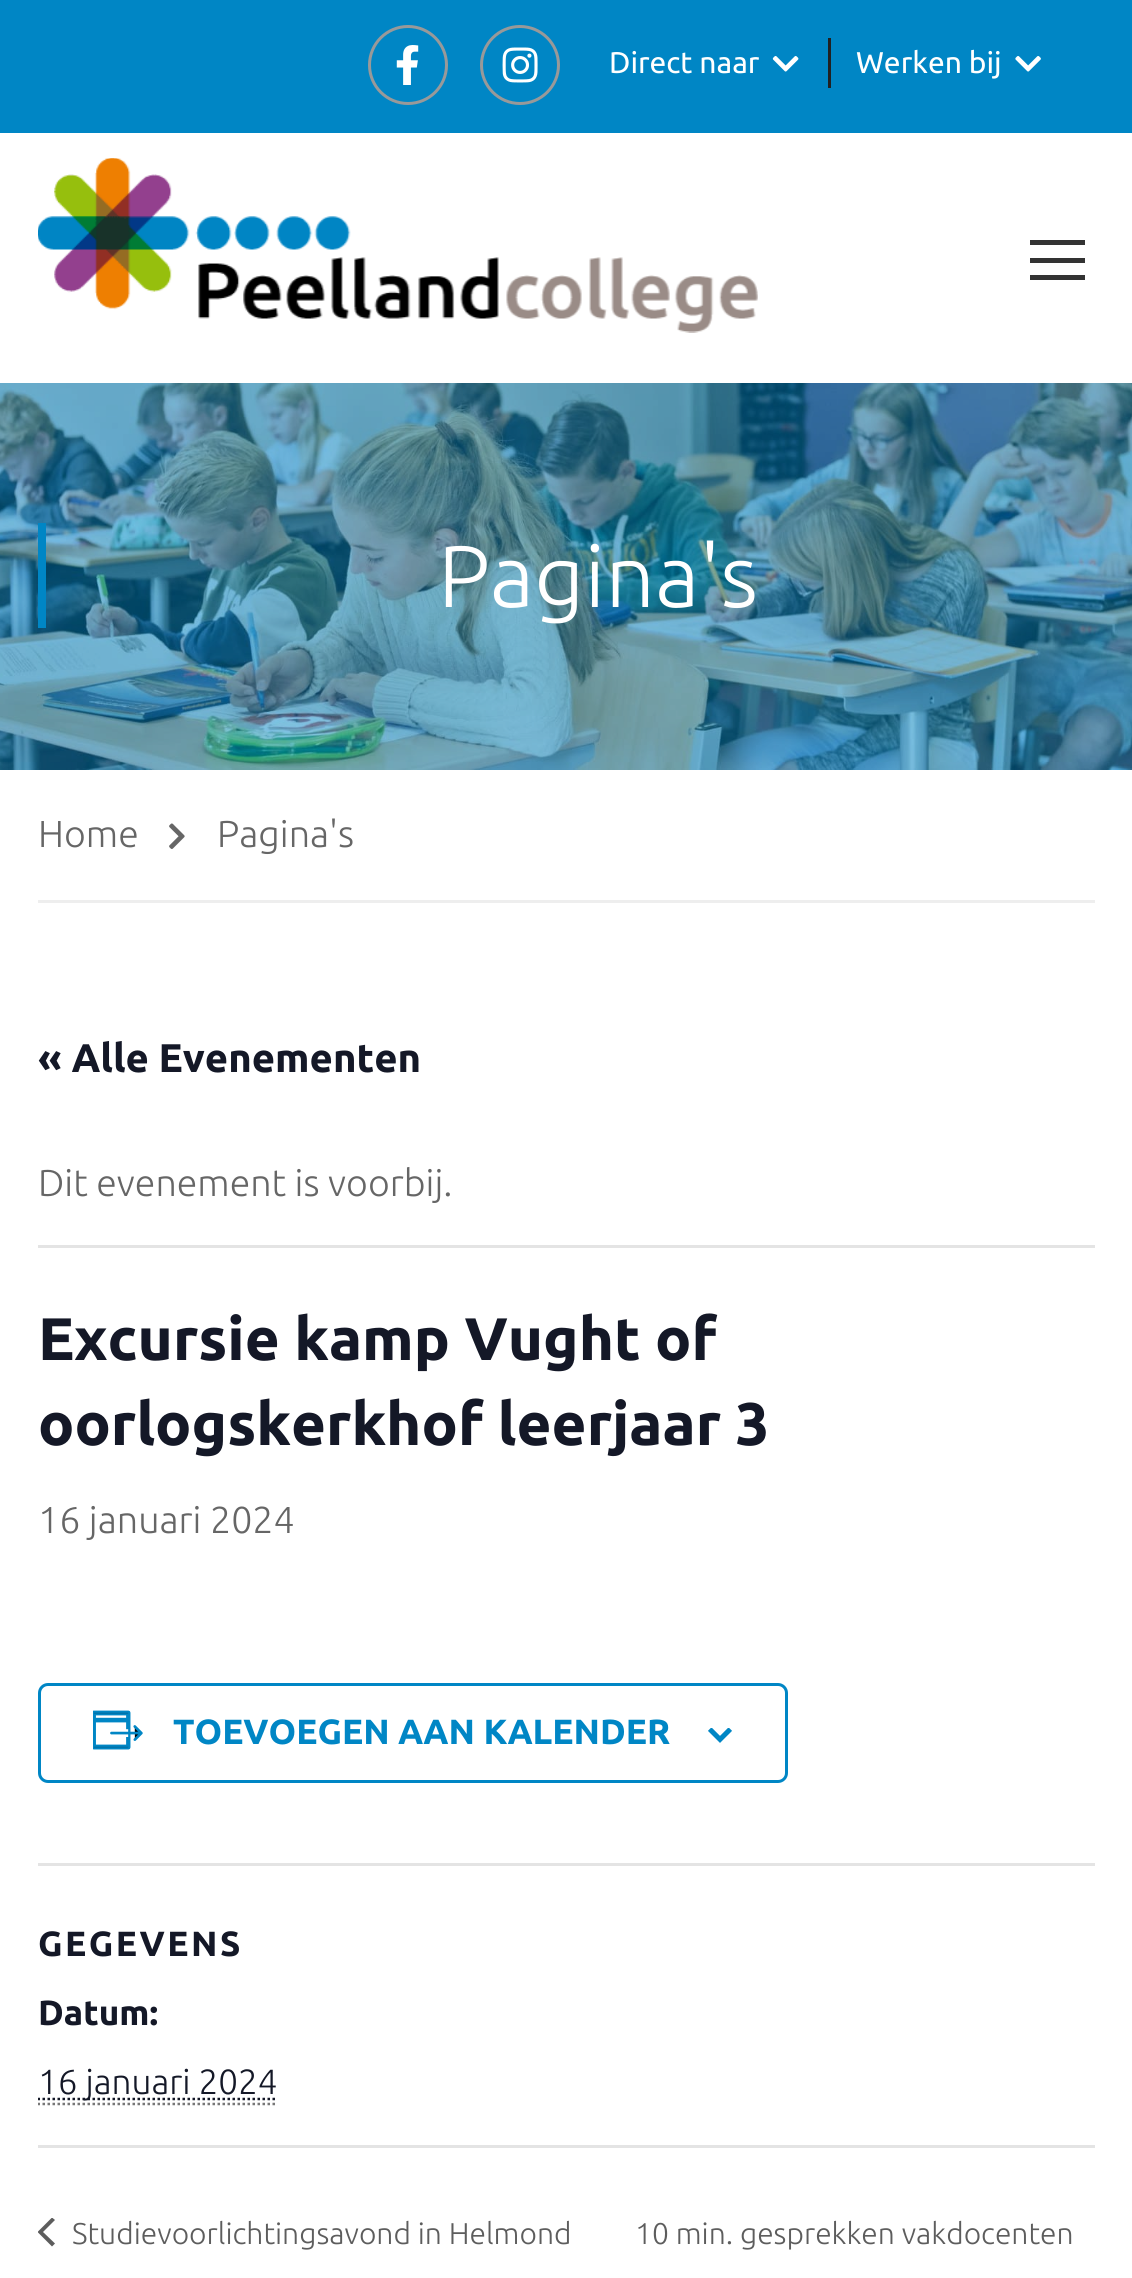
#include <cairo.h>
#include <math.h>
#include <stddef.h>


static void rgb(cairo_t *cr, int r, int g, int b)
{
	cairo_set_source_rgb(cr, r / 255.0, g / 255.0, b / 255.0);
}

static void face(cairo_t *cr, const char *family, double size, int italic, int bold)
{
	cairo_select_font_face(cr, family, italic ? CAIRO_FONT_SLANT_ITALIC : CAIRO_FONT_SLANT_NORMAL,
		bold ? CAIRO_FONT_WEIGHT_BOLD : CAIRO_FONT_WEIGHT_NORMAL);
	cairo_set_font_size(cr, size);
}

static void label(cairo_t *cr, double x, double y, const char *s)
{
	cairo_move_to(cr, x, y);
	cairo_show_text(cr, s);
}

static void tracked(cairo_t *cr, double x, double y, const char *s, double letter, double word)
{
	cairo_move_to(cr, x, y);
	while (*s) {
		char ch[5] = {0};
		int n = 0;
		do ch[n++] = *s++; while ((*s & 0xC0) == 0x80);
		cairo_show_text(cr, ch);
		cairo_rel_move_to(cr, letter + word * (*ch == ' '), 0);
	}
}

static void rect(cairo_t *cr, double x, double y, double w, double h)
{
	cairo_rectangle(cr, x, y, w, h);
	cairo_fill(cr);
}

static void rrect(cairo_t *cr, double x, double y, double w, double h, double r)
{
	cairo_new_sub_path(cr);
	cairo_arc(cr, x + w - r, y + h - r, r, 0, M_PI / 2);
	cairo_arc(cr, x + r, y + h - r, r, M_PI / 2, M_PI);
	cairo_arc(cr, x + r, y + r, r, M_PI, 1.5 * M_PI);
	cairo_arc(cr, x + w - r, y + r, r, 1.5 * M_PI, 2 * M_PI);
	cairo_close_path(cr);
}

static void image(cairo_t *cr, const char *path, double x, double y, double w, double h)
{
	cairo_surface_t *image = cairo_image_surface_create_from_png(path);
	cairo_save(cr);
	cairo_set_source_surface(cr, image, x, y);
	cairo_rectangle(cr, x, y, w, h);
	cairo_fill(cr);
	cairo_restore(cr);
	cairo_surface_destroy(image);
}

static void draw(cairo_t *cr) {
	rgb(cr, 255, 255, 255);
	cairo_paint(cr);
	rgb(cr, 0, 134, 197);
	rect(cr, 0, 0, 1132, 133);
	cairo_arc(cr, 408, 65, 38.5, 0, 2 * M_PI);
	rgb(cr, 153, 153, 153);
	cairo_set_line_width(cr, 3);
	cairo_stroke(cr);
	image(cr, "image0.png", 396, 45, 23, 40);
	cairo_arc(cr, 520, 65, 38.5, 0, 2 * M_PI);
	cairo_stroke(cr);
	image(cr, "image1.png", 502, 47, 36, 36);
	rgb(cr, 33, 33, 33);
	rect(cr, 828, 38, 3, 50);
	face(cr, "Ubuntu", 30, 0, 0);
	rgb(cr, 255, 255, 255);
	label(cr, 609, 73, "Direct naar");
	image(cr, "image2.png", 772, 56, 27, 16);
	label(cr, 856, 73, "Werken bij");
	image(cr, "image3.png", 1015, 56, 26, 16);
	image(cr, "image4.png", 38, 158, 720, 175);
	rgb(cr, 51, 51, 51);
	rect(cr, 1030, 240, 55, 5);
	rect(cr, 1030, 258, 55, 5);
	rect(cr, 1030, 275, 55, 5);
	image(cr, "image5.png", 0, 383, 1132, 387);
	rgb(cr, 0, 134, 197);
	rect(cr, 38, 523, 8, 105);
	face(cr, "Ubuntu Light", 87.5, 0, 0);
	rgb(cr, 255, 255, 255);
	label(cr, 438, 607, "Pagina's");
	rgb(cr, 238, 238, 238);
	rect(cr, 38, 900, 1057, 3);
	face(cr, "Ubuntu Light", 37.5, 0, 0);
	rgb(cr, 102, 102, 102);
	label(cr, 38, 847, "Home");
	image(cr, "image6.png", 169, 823, 16, 26);
	label(cr, 217, 847, "Pagina's");
	face(cr, "Ubuntu", 40, 0, 1);
	rgb(cr, 20, 24, 39);
	label(cr, 38, 1072, "« Alle Evenementen");
	rgb(cr, 228, 228, 228);
	rect(cr, 38, 1245, 1057, 3);
	face(cr, "Ubuntu Light", 37.5, 0, 0);
	rgb(cr, 102, 102, 102);
	label(cr, 38, 1196, "Dit evenement is voorbij.");
	face(cr, "Ubuntu", 60, 0, 1);
	rgb(cr, 20, 24, 39);
	label(cr, 38, 1360, "Excursie kamp Vught of");
	label(cr, 38, 1445, "oorlogskerkhof leerjaar 3");
	face(cr, "Ubuntu Light", 37.5, 0, 0);
	rgb(cr, 102, 102, 102);
	label(cr, 38, 1533, "16 januari 2024");
	rrect(cr, 39.5, 1684.5, 747, 97, 8.5);
	rgb(cr, 0, 134, 197);
	cairo_stroke(cr);
	image(cr, "image7.png", 93, 1710, 50, 40);
	face(cr, "Ubuntu", 35, 0, 1);
	label(cr, 173, 1744, "TOEVOEGEN AAN KALENDER");
	image(cr, "image8.png", 708, 1728, 24, 15);
	rgb(cr, 228, 228, 228);
	rect(cr, 38, 1863, 1057, 3);
	rgb(cr, 20, 24, 39);
	tracked(cr, 38, 1956, "GEGEVENS", 2.5, 0);
	label(cr, 38, 2025, "Datum:");
	cairo_save(cr);
	cairo_rectangle(cr, 38, 1603, 1057, 542);
	cairo_clip(cr);
	cairo_new_path(cr);
	cairo_move_to(cr, 37.5, 2099);
	cairo_line_to(cr, 277, 2099);
	cairo_set_line_width(cr, 2.5);
	cairo_set_dash(cr, (double[]){2.5, 2.5}, 2, 0);
	cairo_stroke(cr);
	cairo_restore(cr);
	face(cr, "Ubuntu Light", 35, 0, 0);
	label(cr, 38, 2094, "16 januari 2024");
	cairo_save(cr);
	cairo_rectangle(cr, 38, 1603, 1057, 542);
	cairo_clip(cr);
	cairo_new_path(cr);
	cairo_move_to(cr, 37.5, 2104);
	cairo_line_to(cr, 277.5, 2104);
	rgb(cr, 119, 119, 119);
	cairo_set_line_width(cr, 2.5);
	cairo_set_dash(cr, (double[]){2.5, 2.5}, 2, 0);
	cairo_stroke(cr);
	cairo_restore(cr);
	rgb(cr, 228, 228, 228);
	rect(cr, 38, 2145, 1057, 3);
	cairo_save(cr);
	cairo_rectangle(cr, 38, 2218, 17, 30);
	cairo_clip(cr);
	rgb(cr, 93, 93, 93);
	cairo_new_path(cr);
	cairo_move_to(cr, 55, 2243.5);
	cairo_line_to(cr, 52, 2246.5);
	cairo_line_to(cr, 37.5, 2232);
	cairo_line_to(cr, 52, 2217.5);
	cairo_line_to(cr, 55, 2220);
	cairo_line_to(cr, 43, 2232);
	cairo_close_path(cr);
	cairo_fill(cr);
	cairo_restore(cr);
	face(cr, "Ubuntu Light", 30, 0, 0);
	rgb(cr, 93, 93, 93);
	label(cr, 72, 2244, "Studievoorlichtingsavond in Helmond");
	label(cr, 635, 2244, "10 min. gesprekken vakdocenten");
}

int main(void) {
	cairo_surface_t *surface = cairo_image_surface_create(CAIRO_FORMAT_RGB24, 1132, 2278);
	cairo_t *cr = cairo_create(surface);
	cairo_font_options_t *options = cairo_font_options_create();
	cairo_font_options_set_hint_metrics(options, CAIRO_HINT_METRICS_OFF);
	cairo_font_options_set_hint_style(options, CAIRO_HINT_STYLE_NONE);
	cairo_set_font_options(cr, options);
	cairo_set_miter_limit(cr, 4);
	draw(cr);
	cairo_surface_write_to_png(surface, "render.png");
	cairo_font_options_destroy(options);
	cairo_destroy(cr);
	cairo_surface_destroy(surface);
	return 0;
}
